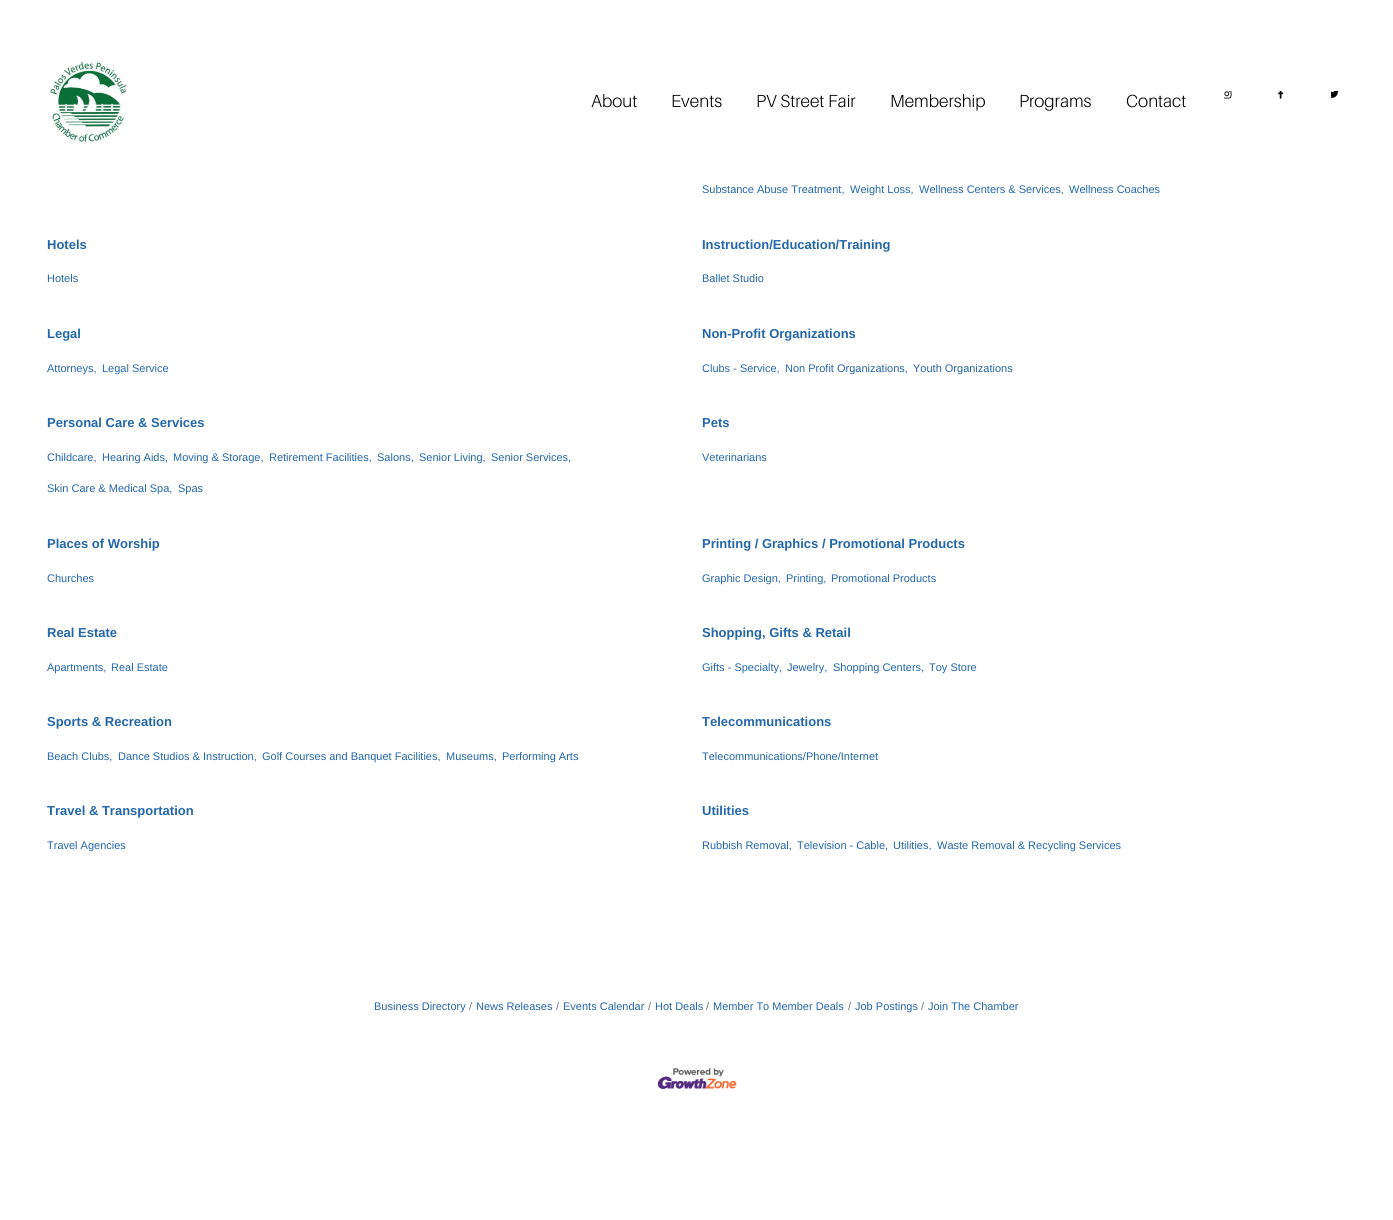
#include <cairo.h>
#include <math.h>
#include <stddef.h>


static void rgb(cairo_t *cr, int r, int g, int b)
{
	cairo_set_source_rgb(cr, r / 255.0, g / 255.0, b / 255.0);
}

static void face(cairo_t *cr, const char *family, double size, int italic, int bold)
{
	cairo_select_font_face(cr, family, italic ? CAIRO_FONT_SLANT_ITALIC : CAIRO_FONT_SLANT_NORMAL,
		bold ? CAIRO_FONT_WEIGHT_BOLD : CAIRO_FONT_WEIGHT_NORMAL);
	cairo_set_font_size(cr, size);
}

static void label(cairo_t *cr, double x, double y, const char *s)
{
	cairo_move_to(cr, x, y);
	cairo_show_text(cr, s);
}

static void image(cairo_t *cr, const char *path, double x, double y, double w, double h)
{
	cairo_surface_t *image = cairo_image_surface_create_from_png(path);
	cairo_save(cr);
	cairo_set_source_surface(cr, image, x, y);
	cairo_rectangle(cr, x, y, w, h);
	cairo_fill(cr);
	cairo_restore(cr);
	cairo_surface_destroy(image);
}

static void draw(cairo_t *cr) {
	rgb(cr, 255, 255, 255);
	cairo_paint(cr);
	image(cr, "image0.png", 49, 61, 78, 82);
	face(cr, "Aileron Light", 17.5, 0, 0);
	rgb(cr, 0, 0, 0);
	label(cr, 591, 107, "About");
	label(cr, 671, 107, "Events");
	label(cr, 756, 107, "PV Street Fair");
	label(cr, 890, 107, "Membership");
	label(cr, 1019, 107, "Programs");
	label(cr, 1126, 107, "Contact");
	image(cr, "image1.png", 1224, 91, 8, 8);
	image(cr, "image2.png", 1278, 91, 6, 8);
	image(cr, "image3.png", 1331, 91, 8, 7);
	face(cr, "Liberation Sans", 11, 0, 0);
	rgb(cr, 35, 103, 171);
	label(cr, 702, 193, "Substance Abuse Treatment,");
	label(cr, 850, 193, "Weight Loss,");
	label(cr, 919, 193, "Wellness Centers & Services,");
	label(cr, 1069, 193, "Wellness Coaches");
	face(cr, "Liberation Sans", 13, 0, 1);
	label(cr, 47, 249, "Hotels");
	face(cr, "Liberation Sans", 11, 0, 0);
	label(cr, 47, 282, "Hotels");
	face(cr, "Liberation Sans", 13, 0, 1);
	label(cr, 702, 249, "Instruction/Education/Training");
	face(cr, "Liberation Sans", 11, 0, 0);
	label(cr, 702, 282, "Ballet Studio");
	face(cr, "Liberation Sans", 13, 0, 1);
	label(cr, 47, 338, "Legal");
	face(cr, "Liberation Sans", 11, 0, 0);
	label(cr, 47, 372, "Attorneys,");
	label(cr, 102, 372, "Legal Service");
	face(cr, "Liberation Sans", 13, 0, 1);
	label(cr, 702, 338, "Non-Profit Organizations");
	face(cr, "Liberation Sans", 11, 0, 0);
	label(cr, 702, 372, "Clubs - Service,");
	label(cr, 785, 372, "Non Profit Organizations,");
	label(cr, 913, 372, "Youth Organizations");
	face(cr, "Liberation Sans", 13, 0, 1);
	label(cr, 47, 427, "Personal Care & Services");
	face(cr, "Liberation Sans", 11, 0, 0);
	label(cr, 47, 461, "Childcare,");
	label(cr, 102, 461, "Hearing Aids,");
	label(cr, 173, 461, "Moving & Storage,");
	label(cr, 269, 461, "Retirement Facilities,");
	label(cr, 377, 461, "Salons,");
	label(cr, 419, 461, "Senior Living,");
	label(cr, 491, 461, "Senior Services,");
	label(cr, 47, 492, "Skin Care & Medical Spa,");
	label(cr, 178, 492, "Spas");
	face(cr, "Liberation Sans", 13, 0, 1);
	label(cr, 702, 427, "Pets");
	face(cr, "Liberation Sans", 11, 0, 0);
	label(cr, 702, 461, "Veterinarians");
	face(cr, "Liberation Sans", 13, 0, 1);
	label(cr, 47, 548, "Places of Worship");
	face(cr, "Liberation Sans", 11, 0, 0);
	label(cr, 47, 582, "Churches");
	face(cr, "Liberation Sans", 13, 0, 1);
	label(cr, 702, 548, "Printing / Graphics / Promotional Products");
	face(cr, "Liberation Sans", 11, 0, 0);
	label(cr, 702, 582, "Graphic Design,");
	label(cr, 786, 582, "Printing,");
	label(cr, 831, 582, "Promotional Products");
	face(cr, "Liberation Sans", 13, 0, 1);
	label(cr, 47, 637, "Real Estate");
	face(cr, "Liberation Sans", 11, 0, 0);
	label(cr, 47, 671, "Apartments,");
	label(cr, 111, 671, "Real Estate");
	face(cr, "Liberation Sans", 13, 0, 1);
	label(cr, 702, 637, "Shopping, Gifts & Retail");
	face(cr, "Liberation Sans", 11, 0, 0);
	label(cr, 702, 671, "Gifts - Specialty,");
	label(cr, 787, 671, "Jewelry,");
	label(cr, 833, 671, "Shopping Centers,");
	label(cr, 929, 671, "Toy Store");
	face(cr, "Liberation Sans", 13, 0, 1);
	label(cr, 47, 726, "Sports & Recreation");
	face(cr, "Liberation Sans", 11, 0, 0);
	label(cr, 47, 760, "Beach Clubs,");
	label(cr, 118, 760, "Dance Studios & Instruction,");
	label(cr, 262, 760, "Golf Courses and Banquet Facilities,");
	label(cr, 446, 760, "Museums,");
	label(cr, 502, 760, "Performing Arts");
	face(cr, "Liberation Sans", 13, 0, 1);
	label(cr, 702, 726, "Telecommunications");
	face(cr, "Liberation Sans", 11, 0, 0);
	label(cr, 702, 760, "Telecommunications/Phone/Internet");
	face(cr, "Liberation Sans", 13, 0, 1);
	label(cr, 47, 815, "Travel & Transportation");
	face(cr, "Liberation Sans", 11, 0, 0);
	label(cr, 47, 849, "Travel Agencies");
	face(cr, "Liberation Sans", 13, 0, 1);
	label(cr, 702, 815, "Utilities");
	face(cr, "Liberation Sans", 11, 0, 0);
	label(cr, 702, 849, "Rubbish Removal,");
	label(cr, 797, 849, "Television - Cable,");
	label(cr, 893, 849, "Utilities,");
	label(cr, 937, 849, "Waste Removal & Recycling Services");
	label(cr, 374, 1010, "Business Directory");
	rgb(cr, 108, 117, 125);
	label(cr, 469, 1010, "/");
	rgb(cr, 35, 103, 171);
	label(cr, 476, 1010, "News Releases");
	rgb(cr, 108, 117, 125);
	label(cr, 556, 1010, "/");
	rgb(cr, 35, 103, 171);
	label(cr, 563, 1010, "Events Calendar");
	rgb(cr, 108, 117, 125);
	label(cr, 648, 1010, "/");
	rgb(cr, 35, 103, 171);
	label(cr, 655, 1010, "Hot Deals");
	rgb(cr, 108, 117, 125);
	label(cr, 706, 1010, "/");
	rgb(cr, 35, 103, 171);
	label(cr, 713, 1010, "Member To Member Deals");
	rgb(cr, 108, 117, 125);
	label(cr, 848, 1010, "/");
	rgb(cr, 35, 103, 171);
	label(cr, 855, 1010, "Job Postings");
	rgb(cr, 108, 117, 125);
	label(cr, 921, 1010, "/");
	rgb(cr, 35, 103, 171);
	label(cr, 928, 1010, "Join The Chamber");
	image(cr, "image4.png", 657, 1068, 80, 21);
}

int main(void) {
	cairo_surface_t *surface = cairo_image_surface_create(CAIRO_FORMAT_RGB24, 1393, 1220);
	cairo_t *cr = cairo_create(surface);
	cairo_font_options_t *options = cairo_font_options_create();
	cairo_font_options_set_hint_metrics(options, CAIRO_HINT_METRICS_OFF);
	cairo_font_options_set_hint_style(options, CAIRO_HINT_STYLE_NONE);
	cairo_set_font_options(cr, options);
	cairo_set_miter_limit(cr, 4);
	draw(cr);
	cairo_surface_write_to_png(surface, "render.png");
	cairo_font_options_destroy(options);
	cairo_destroy(cr);
	cairo_surface_destroy(surface);
	return 0;
}
